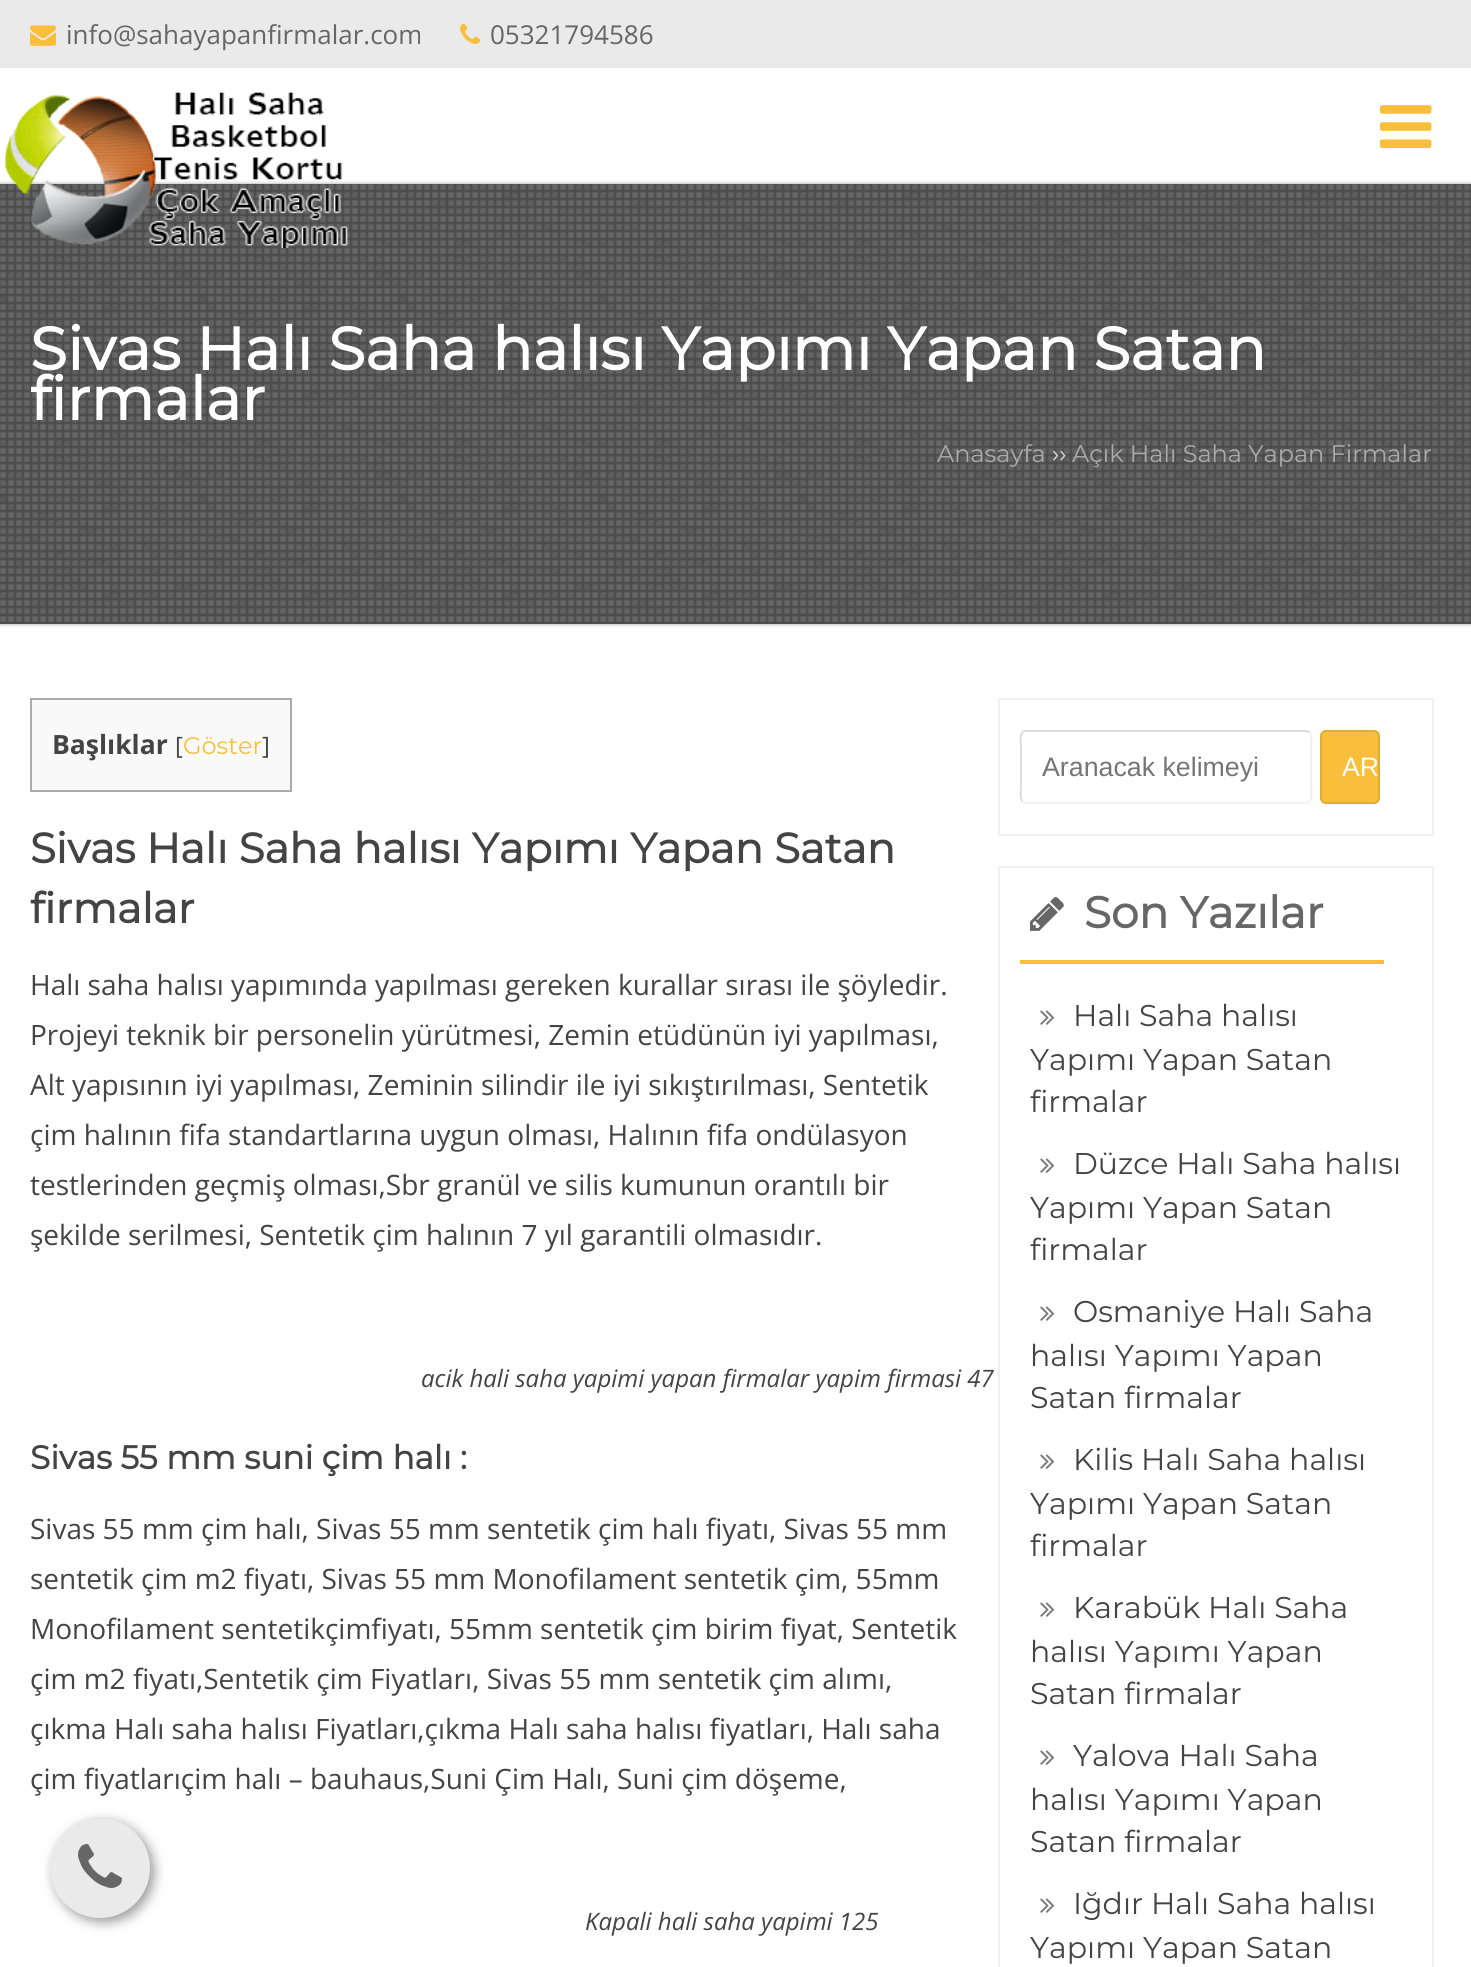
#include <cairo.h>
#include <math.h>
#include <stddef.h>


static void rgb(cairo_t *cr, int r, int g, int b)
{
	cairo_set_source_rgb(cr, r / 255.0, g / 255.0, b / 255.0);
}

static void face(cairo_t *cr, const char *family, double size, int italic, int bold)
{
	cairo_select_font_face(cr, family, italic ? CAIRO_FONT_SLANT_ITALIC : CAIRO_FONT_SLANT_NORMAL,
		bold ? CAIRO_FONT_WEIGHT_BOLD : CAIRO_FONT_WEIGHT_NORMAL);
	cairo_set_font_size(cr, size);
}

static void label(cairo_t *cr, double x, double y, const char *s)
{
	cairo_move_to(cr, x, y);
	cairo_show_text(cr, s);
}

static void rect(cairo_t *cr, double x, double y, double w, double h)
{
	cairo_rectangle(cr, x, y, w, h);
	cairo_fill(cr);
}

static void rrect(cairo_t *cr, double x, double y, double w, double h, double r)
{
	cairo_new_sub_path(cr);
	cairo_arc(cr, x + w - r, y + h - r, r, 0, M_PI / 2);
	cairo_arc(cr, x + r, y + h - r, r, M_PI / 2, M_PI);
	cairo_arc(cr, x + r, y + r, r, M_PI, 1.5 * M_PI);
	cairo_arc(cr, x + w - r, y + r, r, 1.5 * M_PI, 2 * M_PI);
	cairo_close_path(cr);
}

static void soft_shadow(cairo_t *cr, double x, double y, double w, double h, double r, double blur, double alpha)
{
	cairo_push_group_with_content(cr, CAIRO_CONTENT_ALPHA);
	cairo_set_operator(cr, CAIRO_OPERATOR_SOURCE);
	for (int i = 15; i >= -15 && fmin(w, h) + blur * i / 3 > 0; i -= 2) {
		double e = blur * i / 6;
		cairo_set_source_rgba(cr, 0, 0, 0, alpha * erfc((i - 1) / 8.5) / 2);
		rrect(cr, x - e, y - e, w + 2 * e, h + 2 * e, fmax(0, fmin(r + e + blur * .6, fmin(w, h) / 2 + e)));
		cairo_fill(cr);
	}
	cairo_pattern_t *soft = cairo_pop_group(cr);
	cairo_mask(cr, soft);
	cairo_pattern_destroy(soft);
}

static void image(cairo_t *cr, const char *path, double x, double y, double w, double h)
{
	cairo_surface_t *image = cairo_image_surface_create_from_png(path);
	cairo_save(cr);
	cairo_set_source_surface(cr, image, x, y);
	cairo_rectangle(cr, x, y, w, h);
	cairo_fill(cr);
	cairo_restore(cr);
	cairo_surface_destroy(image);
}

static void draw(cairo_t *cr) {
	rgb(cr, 255, 255, 255);
	cairo_paint(cr);
	rgb(cr, 234, 234, 234);
	rect(cr, 0, 0, 1471, 68);
	image(cr, "image0.png", 30, 25, 26, 21);
	face(cr, "Open Sans", 26, 0, 0);
	rgb(cr, 102, 102, 102);
	label(cr, 66, 44, "info@sahayapanfirmalar.com");
	image(cr, "image1.png", 460, 23, 21, 21);
	label(cr, 490, 44, "05321794586");
	rgb(cr, 153, 153, 153);
	soft_shadow(cr, 0, 184, 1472, 440, 0, 2, 1);
	rgb(cr, 102, 102, 102);
	rect(cr, 0, 184, 1471, 440);
	image(cr, "image4.png", 0, 184, 1471, 440);
	image(cr, "image2.png", 5, 92, 343, 156);
	image(cr, "image3.png", 1380, 105, 52, 43);
	face(cr, "Montserrat", 60, 0, 1);
	rgb(cr, 255, 255, 255);
	label(cr, 30, 370, "Sivas Halı Saha halısı Yapımı Yapan Satan");
	label(cr, 30, 420, "firmalar");
	face(cr, "Montserrat Thin", 24, 0, 0);
	rgb(cr, 171, 171, 171);
	label(cr, 937, 462, "Anasayfa");
	face(cr, "Open Sans", 24, 0, 0);
	rgb(cr, 204, 204, 204);
	label(cr, 1052, 462, "››");
	face(cr, "Montserrat Thin", 24, 0, 0);
	rgb(cr, 171, 171, 171);
	label(cr, 1072, 462, "Açık Halı Saha Yapan Firmalar");
	rgb(cr, 249, 249, 249);
	cairo_rectangle(cr, 31, 699, 260, 92);
	cairo_fill_preserve(cr);
	rgb(cr, 170, 170, 170);
	cairo_stroke(cr);
	face(cr, "Open Sans", 26.5, 0, 1);
	rgb(cr, 68, 68, 68);
	label(cr, 52, 754, "Başlıklar");
	face(cr, "Open Sans", 24, 0, 0);
	label(cr, 175, 754, "[");
	face(cr, "Montserrat Thin", 24, 0, 0);
	rgb(cr, 249, 191, 59);
	label(cr, 183, 754, "Göster");
	face(cr, "Open Sans", 24, 0, 0);
	rgb(cr, 68, 68, 68);
	label(cr, 262, 754, "]");
	face(cr, "Montserrat", 42, 0, 1);
	label(cr, 30, 863, "Sivas Halı Saha halısı Yapımı Yapan Satan");
	label(cr, 30, 923, "firmalar");
	face(cr, "Open Sans", 28, 0, 0);
	label(cr, 30, 995, "Halı saha halısı yapımında yapılması gereken kurallar sırası ile şöyledir.");
	label(cr, 30, 1045, "Projeyi teknik bir personelin yürütmesi, Zemin etüdünün iyi yapılması,");
	label(cr, 30, 1095, "Alt yapısının iyi yapılması, Zeminin silindir ile iyi sıkıştırılması, Sentetik");
	label(cr, 30, 1145, "çim halının fifa standartlarına uygun olması, Halının fifa ondülasyon");
	label(cr, 30, 1195, "testlerinden geçmiş olması,Sbr granül ve silis kumunun orantılı bir");
	label(cr, 30, 1245, "şekilde serilmesi, Sentetik çim halının 7 yıl garantili olmasıdır.");
	face(cr, "Open Sans", 24, 1, 0);
	label(cr, 421, 1387, "acik hali saha yapimi yapan firmalar yapim firmasi 47");
	face(cr, "Montserrat", 32.75, 0, 1);
	label(cr, 30, 1469, "Sivas 55 mm suni çim halı :");
	face(cr, "Open Sans", 28, 0, 0);
	label(cr, 30, 1539, "Sivas 55 mm çim halı, Sivas 55 mm sentetik çim halı fiyatı, Sivas 55 mm");
	label(cr, 30, 1589, "sentetik çim m2 fiyatı, Sivas 55 mm Monofilament sentetik çim, 55mm");
	label(cr, 30, 1639, "Monofilament sentetikçimfiyatı, 55mm sentetik çim birim fiyat, Sentetik");
	label(cr, 30, 1689, "çim m2 fiyatı,Sentetik çim Fiyatları, Sivas 55 mm sentetik çim alımı,");
	label(cr, 30, 1739, "çıkma Halı saha halısı Fiyatları,çıkma Halı saha halısı fiyatları, Halı saha");
	label(cr, 30, 1789, "çim fiyatlarıçim halı – bauhaus,Suni Çim Halı, Suni çim döşeme,");
	face(cr, "Open Sans", 24, 1, 0);
	label(cr, 585, 1930, "Kapali hali saha yapimi 125");
	cairo_rectangle(cr, 999, 699, 434, 136);
	rgb(cr, 240, 240, 240);
	cairo_stroke(cr);
	cairo_new_path(cr);
	cairo_move_to(cr, 1309.5, 732.5);
	cairo_curve_to(cr, 1312.5, 735.5, 1311, 744.5, 1311, 746.5);
	cairo_line_to(cr, 1311, 787.5);
	cairo_curve_to(cr, 1311, 791, 1313.5, 803, 1306, 803);
	cairo_line_to(cr, 1025.5, 803);
	cairo_line_to(cr, 1022.5, 801.5);
	rgb(cr, 241, 241, 241);
	cairo_stroke(cr);
	cairo_new_path(cr);
	cairo_move_to(cr, 1022.5, 801.5);
	cairo_curve_to(cr, 1019.5, 798.5, 1021, 789.5, 1021, 787.5);
	cairo_line_to(cr, 1021, 746.5);
	cairo_curve_to(cr, 1021, 743, 1018.5, 731, 1026, 731);
	cairo_line_to(cr, 1306.5, 731);
	cairo_line_to(cr, 1309.5, 732.5);
	rgb(cr, 221, 221, 221);
	cairo_stroke(cr);
	face(cr, "Liberation Sans", 26.75, 0, 0);
	rgb(cr, 117, 117, 117);
	label(cr, 1042, 776, "Aranacak kelimeyi");
	rgb(cr, 249, 191, 59);
	rrect(cr, 1320, 730, 60, 74, 6);
	cairo_fill(cr);
	rrect(cr, 1321, 731, 58, 72, 5);
	cairo_set_source_rgba(cr, 0, 0, 0, 0.1);
	cairo_stroke(cr);
	rgb(cr, 255, 255, 255);
	label(cr, 1342, 776, "AR");
	cairo_rectangle(cr, 999, 867, 434, 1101);
	cairo_set_source_rgba(cr, 0, 0, 0, 0.06);
	cairo_stroke(cr);
	rgb(cr, 249, 191, 59);
	rect(cr, 1020, 960, 364, 4);
	image(cr, "image5.png", 1030, 897, 34, 34);
	face(cr, "Montserrat", 44, 0, 1);
	rgb(cr, 102, 102, 102);
	label(cr, 1084, 928, "Son Yazılar");
	image(cr, "image6.png", 1040, 1010, 15, 15);
	face(cr, "Montserrat Thin", 30, 0, 0);
	rgb(cr, 68, 68, 68);
	label(cr, 1073, 1026, "Halı Saha halısı");
	label(cr, 1030, 1070, "Yapımı Yapan Satan");
	label(cr, 1030, 1112, "firmalar");
	image(cr, "image6.png", 1040, 1158, 15, 15);
	label(cr, 1073, 1174, "Düzce Halı Saha halısı");
	label(cr, 1030, 1218, "Yapımı Yapan Satan");
	label(cr, 1030, 1260, "firmalar");
	image(cr, "image6.png", 1040, 1306, 15, 15);
	label(cr, 1073, 1322, "Osmaniye Halı Saha");
	label(cr, 1030, 1366, "halısı Yapımı Yapan");
	label(cr, 1030, 1408, "Satan firmalar");
	image(cr, "image6.png", 1040, 1454, 15, 15);
	label(cr, 1073, 1470, "Kilis Halı Saha halısı");
	label(cr, 1030, 1514, "Yapımı Yapan Satan");
	label(cr, 1030, 1556, "firmalar");
	image(cr, "image6.png", 1040, 1602, 15, 15);
	label(cr, 1073, 1618, "Karabük Halı Saha");
	label(cr, 1030, 1662, "halısı Yapımı Yapan");
	label(cr, 1030, 1704, "Satan firmalar");
	image(cr, "image6.png", 1040, 1750, 15, 15);
	label(cr, 1073, 1766, "Yalova Halı Saha");
	label(cr, 1030, 1810, "halısı Yapımı Yapan");
	label(cr, 1030, 1852, "Satan firmalar");
	image(cr, "image6.png", 1040, 1898, 15, 15);
	label(cr, 1073, 1914, "Iğdır Halı Saha halısı");
	label(cr, 1030, 1958, "Yapımı Yapan Satan");
	rgb(cr, 0, 0, 0);
	soft_shadow(cr, 54, 1822, 100, 100, 50, 6, 0.4);
	rgb(cr, 234, 234, 234);
	cairo_arc(cr, 100, 1868, 50, 0, 2 * M_PI);
	cairo_fill(cr);
	image(cr, "image7.png", 78, 1844, 44, 44);
}

int main(void) {
	cairo_surface_t *surface = cairo_image_surface_create(CAIRO_FORMAT_RGB24, 1471, 1967);
	cairo_t *cr = cairo_create(surface);
	cairo_font_options_t *options = cairo_font_options_create();
	cairo_font_options_set_hint_metrics(options, CAIRO_HINT_METRICS_OFF);
	cairo_font_options_set_hint_style(options, CAIRO_HINT_STYLE_NONE);
	cairo_set_font_options(cr, options);
	cairo_set_miter_limit(cr, 4);
	draw(cr);
	cairo_surface_write_to_png(surface, "render.png");
	cairo_font_options_destroy(options);
	cairo_destroy(cr);
	cairo_surface_destroy(surface);
	return 0;
}
